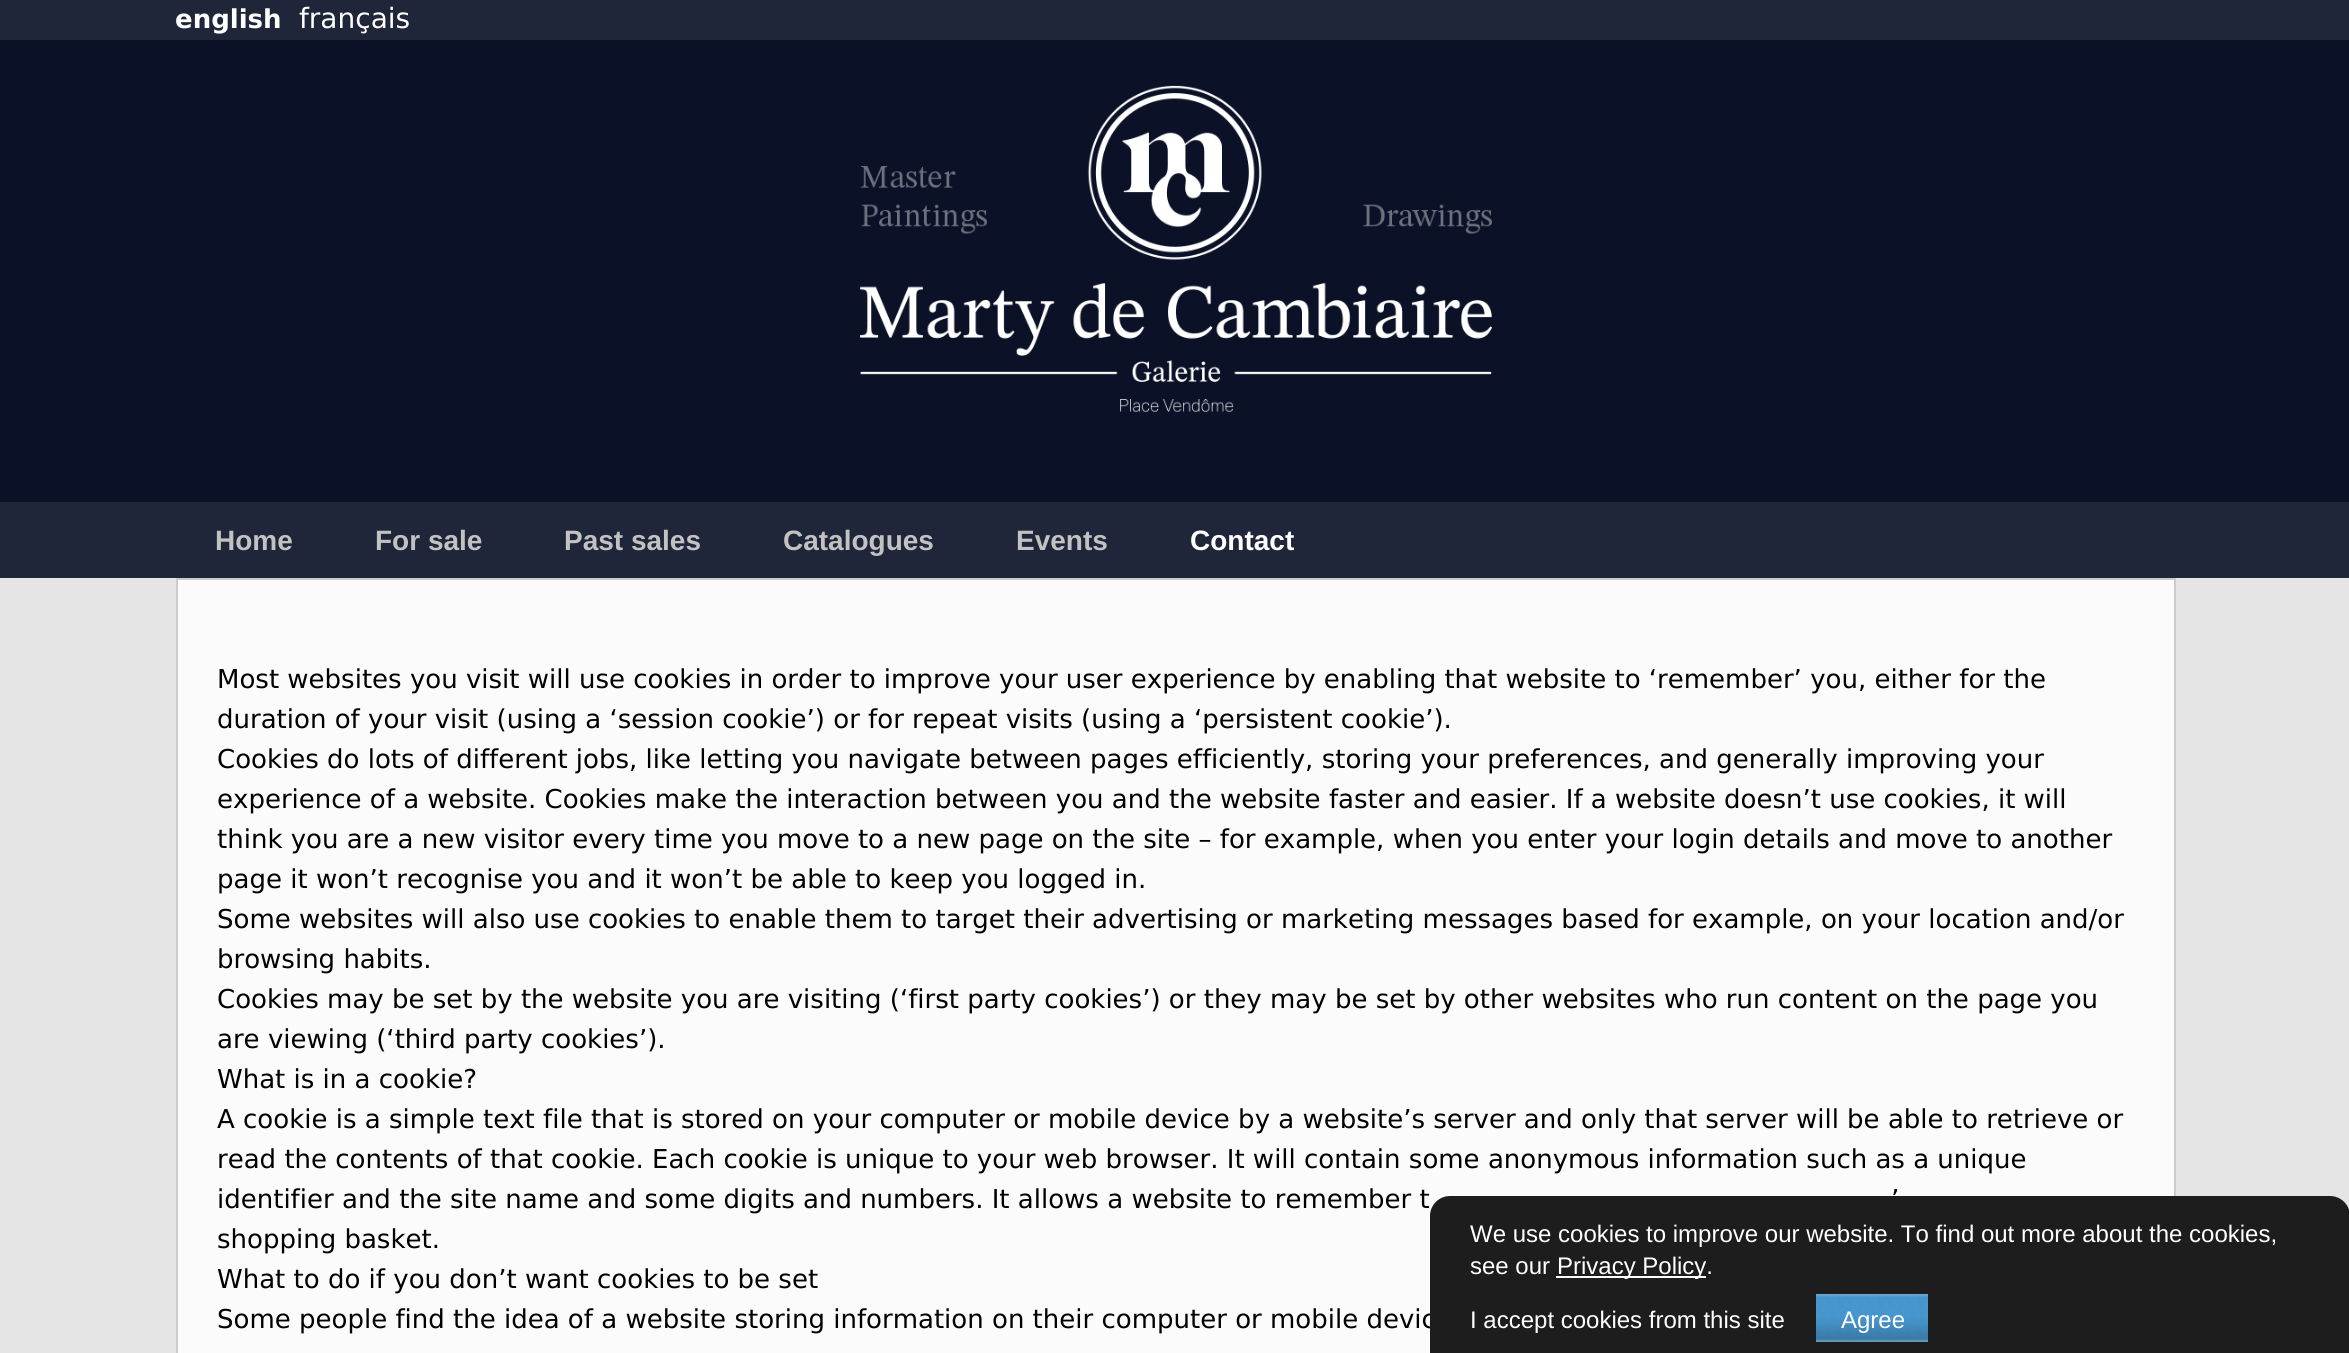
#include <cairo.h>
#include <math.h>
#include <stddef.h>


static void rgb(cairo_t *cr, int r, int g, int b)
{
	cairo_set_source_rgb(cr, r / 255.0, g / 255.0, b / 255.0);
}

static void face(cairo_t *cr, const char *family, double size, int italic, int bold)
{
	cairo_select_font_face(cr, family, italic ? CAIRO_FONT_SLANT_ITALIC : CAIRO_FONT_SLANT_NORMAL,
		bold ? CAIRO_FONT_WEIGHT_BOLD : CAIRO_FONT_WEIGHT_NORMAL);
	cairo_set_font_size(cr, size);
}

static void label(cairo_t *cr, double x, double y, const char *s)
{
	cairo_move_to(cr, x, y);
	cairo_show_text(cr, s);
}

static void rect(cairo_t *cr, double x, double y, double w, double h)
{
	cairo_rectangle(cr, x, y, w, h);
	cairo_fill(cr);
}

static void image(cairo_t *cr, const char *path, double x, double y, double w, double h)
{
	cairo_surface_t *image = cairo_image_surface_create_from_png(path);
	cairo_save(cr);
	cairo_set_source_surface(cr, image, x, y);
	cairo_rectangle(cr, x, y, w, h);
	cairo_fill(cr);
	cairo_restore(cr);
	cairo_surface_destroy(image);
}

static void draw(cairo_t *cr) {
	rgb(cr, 11, 17, 39);
	cairo_paint(cr);
	rgb(cr, 31, 38, 57);
	rect(cr, 0, 0, 2349, 40);
	face(cr, "DejaVu Sans", 26, 0, 1);
	rgb(cr, 255, 255, 255);
	label(cr, 175, 28, "english");
	face(cr, "DejaVu Sans", 28, 0, 0);
	label(cr, 299, 28, "français");
	image(cr, "image0.png", 860, 85, 632, 327);
	rgb(cr, 31, 38, 57);
	rect(cr, 0, 502, 2349, 76);
	face(cr, "Liberation Sans", 28, 0, 1);
	rgb(cr, 194, 194, 194);
	label(cr, 215, 550, "Home");
	label(cr, 375, 550, "For sale");
	label(cr, 564, 550, "Past sales");
	label(cr, 783, 550, "Catalogues");
	label(cr, 1016, 550, "Events");
	rgb(cr, 255, 255, 255);
	label(cr, 1190, 550, "Contact");
	rgb(cr, 230, 229, 229);
	rect(cr, 0, 578, 2349, 775);
	cairo_rectangle(cr, 177, 579, 1998, 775);
	rgb(cr, 204, 204, 204);
	cairo_stroke(cr);
	rgb(cr, 251, 251, 251);
	rect(cr, 178, 580, 1996, 773);
	face(cr, "DejaVu Sans", 26, 0, 0);
	rgb(cr, 0, 0, 0);
	label(cr, 217, 688, "Most websites you visit will use cookies in order to improve your user experience by enabling that website to ‘remember’ you, either for the");
	label(cr, 217, 728, "duration of your visit (using a ‘session cookie’) or for repeat visits (using a ‘persistent cookie’).");
	label(cr, 217, 768, "Cookies do lots of different jobs, like letting you navigate between pages efficiently, storing your preferences, and generally improving your");
	label(cr, 217, 808, "experience of a website. Cookies make the interaction between you and the website faster and easier. If a website doesn’t use cookies, it will");
	label(cr, 217, 848, "think you are a new visitor every time you move to a new page on the site – for example, when you enter your login details and move to another");
	label(cr, 217, 888, "page it won’t recognise you and it won’t be able to keep you logged in.");
	label(cr, 217, 928, "Some websites will also use cookies to enable them to target their advertising or marketing messages based for example, on your location and/or");
	label(cr, 217, 968, "browsing habits.");
	label(cr, 217, 1008, "Cookies may be set by the website you are visiting (‘first party cookies’) or they may be set by other websites who run content on the page you");
	label(cr, 217, 1048, "are viewing (‘third party cookies’).");
	label(cr, 217, 1088, "What is in a cookie?");
	label(cr, 217, 1128, "A cookie is a simple text file that is stored on your computer or mobile device by a website’s server and only that server will be able to retrieve or");
	label(cr, 217, 1168, "read the contents of that cookie. Each cookie is unique to your web browser. It will contain some anonymous information such as a unique");
	label(cr, 217, 1208, "identifier and the site name and some digits and numbers. It allows a website to remember t");
	label(cr, 1891, 1208, "’");
	label(cr, 217, 1248, "shopping basket.");
	label(cr, 217, 1288, "What to do if you don’t want cookies to be set");
	label(cr, 217, 1328, "Some people find the idea of a website storing information on their computer or mobile devic");
	rgb(cr, 29, 29, 29);
	cairo_new_path(cr);
	cairo_move_to(cr, 1450, 1196);
	cairo_line_to(cr, 2330, 1196);
	cairo_curve_to(cr, 2341, 1196, 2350, 1205, 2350, 1216);
	cairo_line_to(cr, 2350, 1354);
	cairo_line_to(cr, 1430, 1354);
	cairo_line_to(cr, 1430, 1216);
	cairo_curve_to(cr, 1430, 1205, 1439, 1196, 1450, 1196);
	cairo_close_path(cr);
	cairo_fill(cr);
	face(cr, "Liberation Sans", 24, 0, 0);
	rgb(cr, 255, 255, 255);
	label(cr, 1470, 1242, "We use cookies to improve our website. To find out more about the cookies,");
	label(cr, 1470, 1274, "see our");
	rect(cr, 1556, 1276, 150, 2);
	label(cr, 1557, 1274, "Privacy Policy.");
	label(cr, 1470, 1328, "I accept cookies from this site");
	image(cr, "image1.png", 1816, 1294, 112, 48);
	label(cr, 1841, 1328, "Agree");
}

int main(void) {
	cairo_surface_t *surface = cairo_image_surface_create(CAIRO_FORMAT_RGB24, 2349, 1353);
	cairo_t *cr = cairo_create(surface);
	cairo_font_options_t *options = cairo_font_options_create();
	cairo_font_options_set_hint_metrics(options, CAIRO_HINT_METRICS_OFF);
	cairo_font_options_set_hint_style(options, CAIRO_HINT_STYLE_NONE);
	cairo_set_font_options(cr, options);
	cairo_set_miter_limit(cr, 4);
	draw(cr);
	cairo_surface_write_to_png(surface, "render.png");
	cairo_font_options_destroy(options);
	cairo_destroy(cr);
	cairo_surface_destroy(surface);
	return 0;
}
